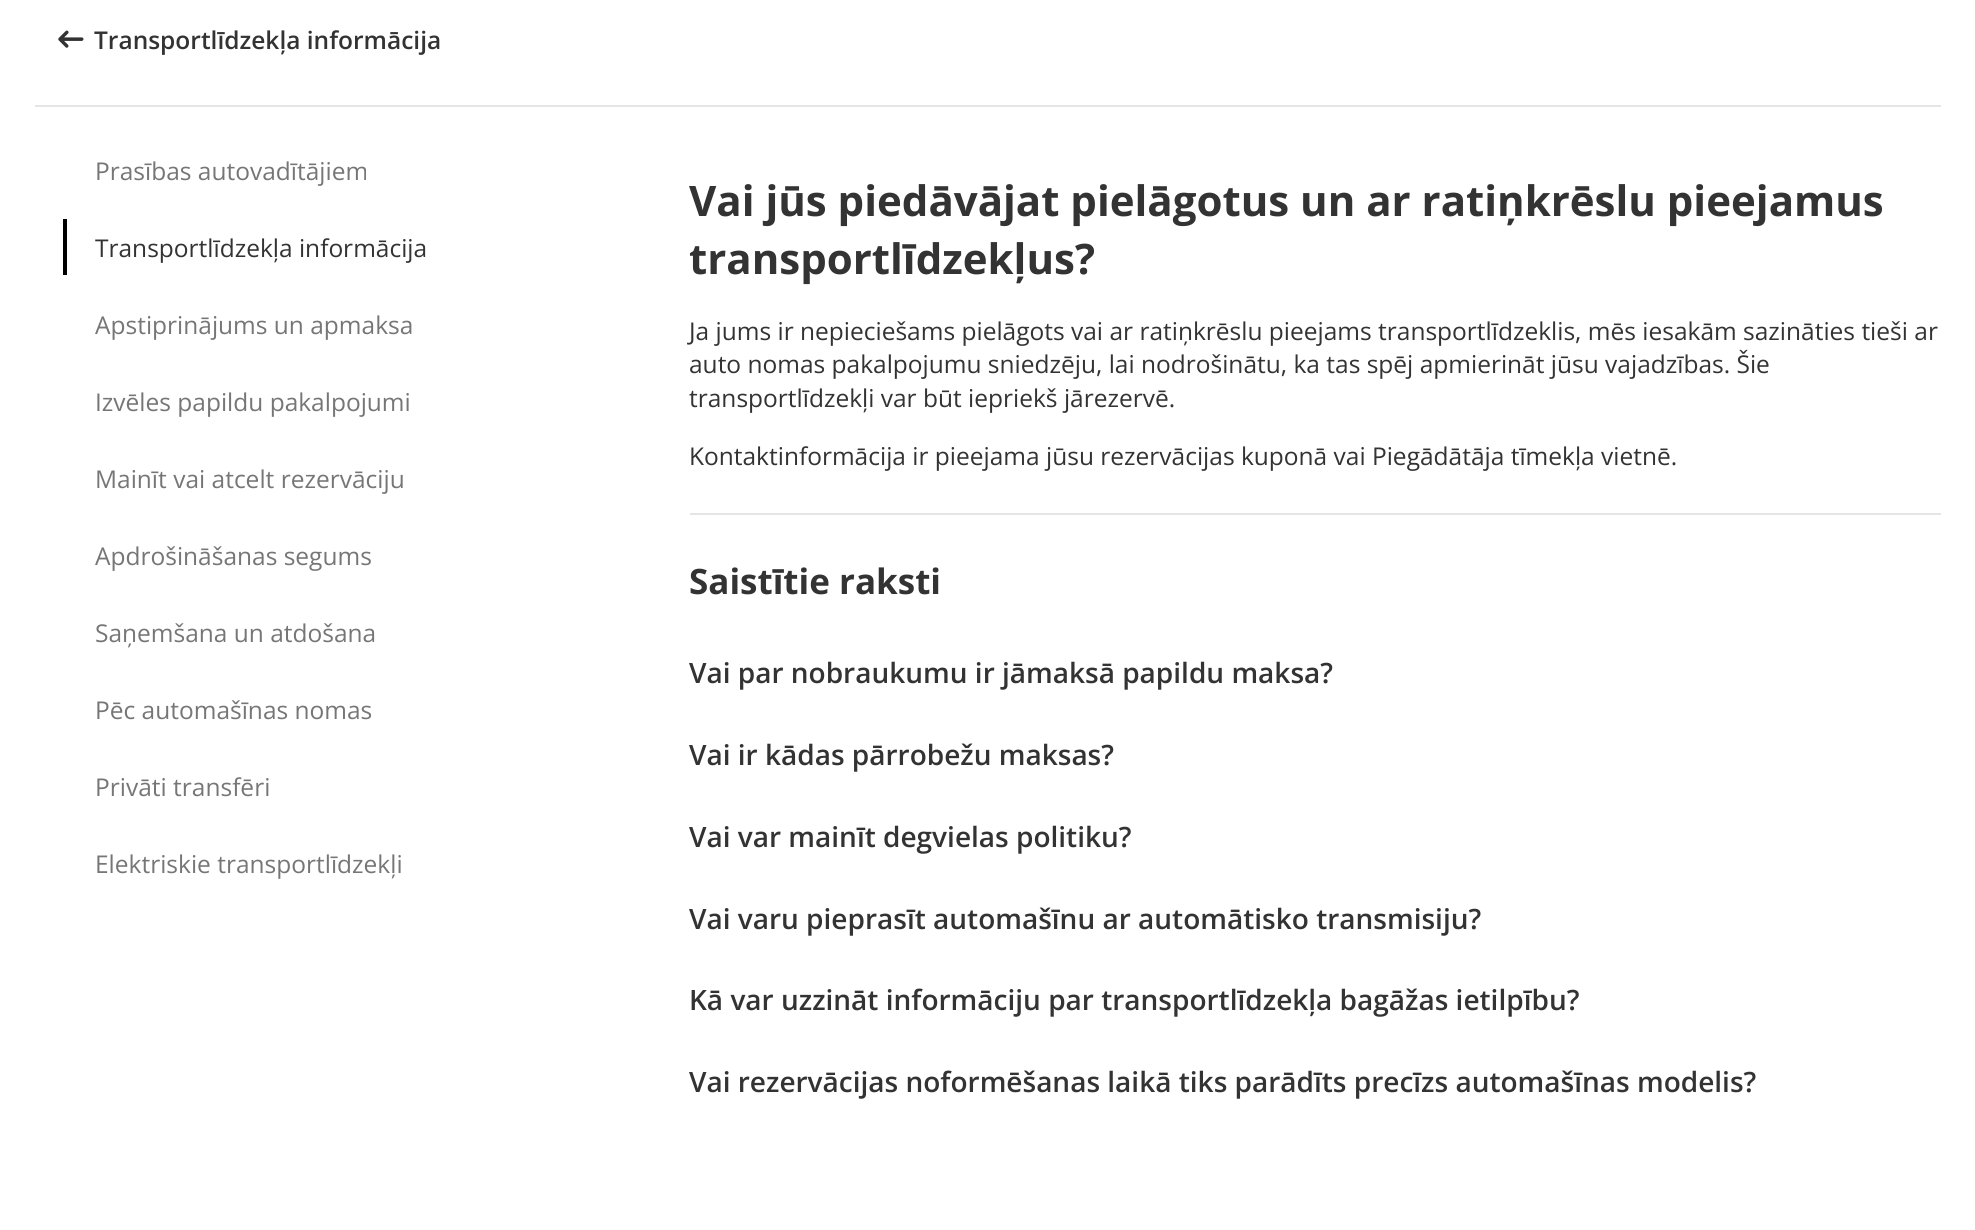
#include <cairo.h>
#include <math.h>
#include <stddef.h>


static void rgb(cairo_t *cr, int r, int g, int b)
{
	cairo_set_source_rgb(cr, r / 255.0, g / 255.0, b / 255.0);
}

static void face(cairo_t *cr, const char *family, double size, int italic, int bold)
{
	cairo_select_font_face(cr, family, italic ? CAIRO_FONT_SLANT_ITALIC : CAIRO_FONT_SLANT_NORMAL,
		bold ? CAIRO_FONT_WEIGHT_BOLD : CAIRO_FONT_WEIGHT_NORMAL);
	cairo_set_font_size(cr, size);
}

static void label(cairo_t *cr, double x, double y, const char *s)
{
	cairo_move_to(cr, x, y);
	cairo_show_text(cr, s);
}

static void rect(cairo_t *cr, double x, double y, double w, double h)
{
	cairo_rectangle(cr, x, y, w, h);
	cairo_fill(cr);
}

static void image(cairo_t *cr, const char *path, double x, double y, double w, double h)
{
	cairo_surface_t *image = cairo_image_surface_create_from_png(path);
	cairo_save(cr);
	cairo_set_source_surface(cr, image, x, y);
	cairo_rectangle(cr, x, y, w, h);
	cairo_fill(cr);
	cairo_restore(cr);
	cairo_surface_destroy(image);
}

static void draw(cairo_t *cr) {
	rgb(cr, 255, 255, 255);
	cairo_paint(cr);
	image(cr, "image0.png", 58, 30, 26, 18);
	face(cr, "Open Sans SemiBold", 24.5, 0, 0);
	rgb(cr, 51, 51, 51);
	label(cr, 94, 49, "Transportlīdzekļa informācija");
	rgb(cr, 229, 229, 229);
	rect(cr, 35, 105, 1906, 2);
	face(cr, "Open Sans", 24.5, 0, 0);
	rgb(cr, 118, 118, 118);
	label(cr, 95, 180, "Prasības autovadītājiem");
	rgb(cr, 0, 0, 0);
	rect(cr, 63, 219, 4, 56);
	rgb(cr, 51, 51, 51);
	label(cr, 95, 257, "Transportlīdzekļa informācija");
	rgb(cr, 118, 118, 118);
	label(cr, 95, 334, "Apstiprinājums un apmaksa");
	label(cr, 95, 411, "Izvēles papildu pakalpojumi");
	label(cr, 95, 488, "Mainīt vai atcelt rezervāciju");
	label(cr, 95, 565, "Apdrošināšanas segums");
	label(cr, 95, 642, "Saņemšana un atdošana");
	label(cr, 95, 719, "Pēc automašīnas nomas");
	label(cr, 95, 796, "Privāti transfēri");
	label(cr, 95, 873, "Elektriskie transportlīdzekļi");
	face(cr, "Open Sans", 42, 0, 1);
	rgb(cr, 51, 51, 51);
	label(cr, 689, 216, "Vai jūs piedāvājat pielāgotus un ar ratiņkrēslu pieejamus");
	label(cr, 689, 274, "transportlīdzekļus?");
	face(cr, "Open Sans", 24.5, 0, 0);
	label(cr, 689, 340, "Ja jums ir nepieciešams pielāgots vai ar ratiņkrēslu pieejams transportlīdzeklis, mēs iesakām sazināties tieši ar");
	label(cr, 689, 373, "auto nomas pakalpojumu sniedzēju, lai nodrošinātu, ka tas spēj apmierināt jūsu vajadzības. Šie");
	label(cr, 689, 407, "transportlīdzekļi var būt iepriekš jārezervē.");
	label(cr, 689, 465, "Kontaktinformācija ir pieejama jūsu rezervācijas kuponā vai Piegādātāja tīmekļa vietnē.");
	rgb(cr, 229, 229, 229);
	rect(cr, 690, 513, 1251, 2);
	face(cr, "Open Sans", 35, 0, 1);
	rgb(cr, 51, 51, 51);
	label(cr, 689, 594, "Saistītie raksti");
	face(cr, "Open Sans SemiBold", 28, 0, 0);
	label(cr, 689, 683, "Vai par nobraukumu ir jāmaksā papildu maksa?");
	label(cr, 689, 765, "Vai ir kādas pārrobežu maksas?");
	label(cr, 689, 847, "Vai var mainīt degvielas politiku?");
	label(cr, 689, 929, "Vai varu pieprasīt automašīnu ar automātisko transmisiju?");
	label(cr, 689, 1010, "Kā var uzzināt informāciju par transportlīdzekļa bagāžas ietilpību?");
	label(cr, 689, 1092, "Vai rezervācijas noformēšanas laikā tiks parādīts precīzs automašīnas modelis?");
}

int main(void) {
	cairo_surface_t *surface = cairo_image_surface_create(CAIRO_FORMAT_RGB24, 1975, 1230);
	cairo_t *cr = cairo_create(surface);
	cairo_font_options_t *options = cairo_font_options_create();
	cairo_font_options_set_hint_metrics(options, CAIRO_HINT_METRICS_OFF);
	cairo_font_options_set_hint_style(options, CAIRO_HINT_STYLE_NONE);
	cairo_set_font_options(cr, options);
	cairo_set_miter_limit(cr, 4);
	draw(cr);
	cairo_surface_write_to_png(surface, "render.png");
	cairo_font_options_destroy(options);
	cairo_destroy(cr);
	cairo_surface_destroy(surface);
	return 0;
}
